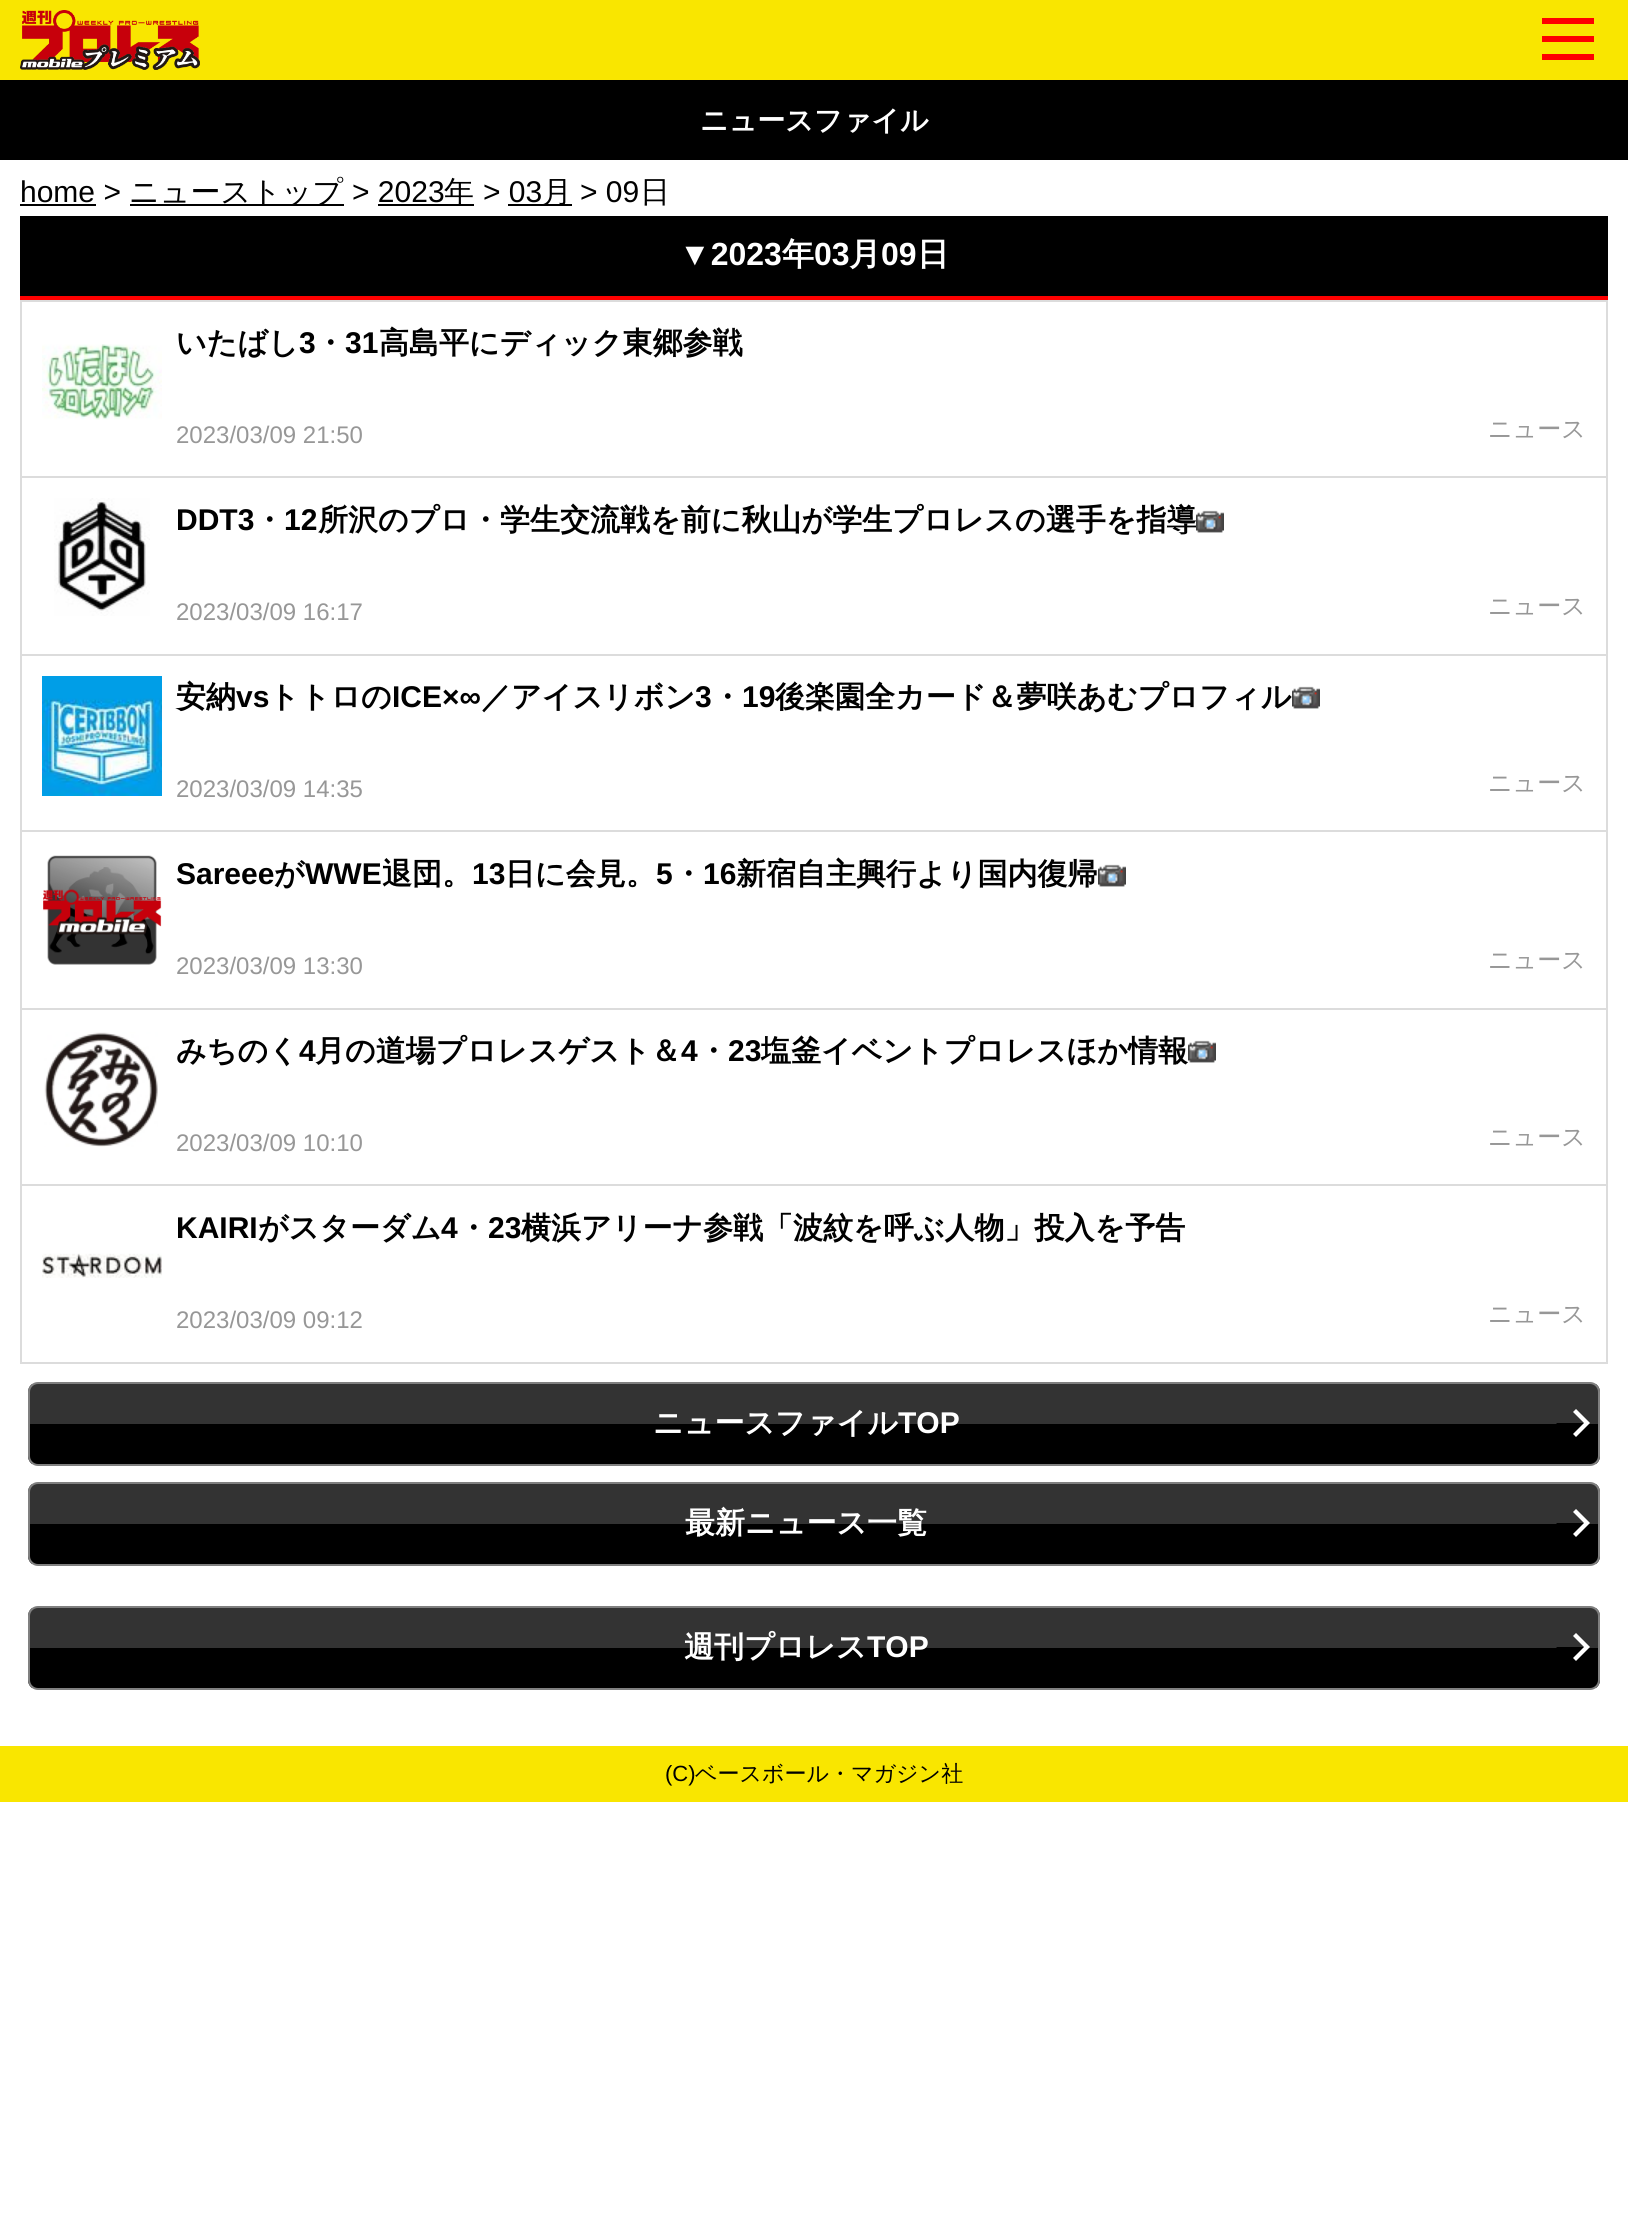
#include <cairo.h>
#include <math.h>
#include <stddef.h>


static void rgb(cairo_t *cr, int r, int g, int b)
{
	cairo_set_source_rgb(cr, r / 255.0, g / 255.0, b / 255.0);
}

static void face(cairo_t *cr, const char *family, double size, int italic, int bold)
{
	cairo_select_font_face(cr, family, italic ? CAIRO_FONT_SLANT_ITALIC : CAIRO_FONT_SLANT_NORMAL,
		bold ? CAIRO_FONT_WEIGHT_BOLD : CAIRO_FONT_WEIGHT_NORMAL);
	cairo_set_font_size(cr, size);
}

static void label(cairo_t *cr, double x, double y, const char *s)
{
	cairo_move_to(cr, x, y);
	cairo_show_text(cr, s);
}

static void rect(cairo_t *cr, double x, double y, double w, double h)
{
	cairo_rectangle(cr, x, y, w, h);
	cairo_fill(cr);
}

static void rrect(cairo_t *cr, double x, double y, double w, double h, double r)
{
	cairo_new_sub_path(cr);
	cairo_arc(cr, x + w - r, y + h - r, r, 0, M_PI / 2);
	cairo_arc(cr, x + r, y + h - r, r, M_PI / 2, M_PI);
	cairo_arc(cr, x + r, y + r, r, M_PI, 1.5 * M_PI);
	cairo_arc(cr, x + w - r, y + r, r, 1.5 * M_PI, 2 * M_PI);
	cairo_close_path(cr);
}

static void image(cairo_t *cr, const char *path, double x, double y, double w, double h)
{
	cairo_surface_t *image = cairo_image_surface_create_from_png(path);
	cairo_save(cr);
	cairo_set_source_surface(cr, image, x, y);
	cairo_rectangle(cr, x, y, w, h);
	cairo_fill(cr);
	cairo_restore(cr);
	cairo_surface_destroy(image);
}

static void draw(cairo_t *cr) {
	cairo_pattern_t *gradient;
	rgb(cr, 255, 255, 255);
	cairo_paint(cr);
	rgb(cr, 249, 230, 0);
	rect(cr, 0, 0, 1628, 80);
	rgb(cr, 255, 0, 0);
	rect(cr, 1542, 18, 52, 6);
	rect(cr, 1542, 36, 52, 6);
	rect(cr, 1542, 54, 52, 6);
	image(cr, "image0.png", 20, 10, 180, 60);
	rgb(cr, 0, 0, 0);
	rect(cr, 0, 80, 1628, 80);
	face(cr, "WenQuanYi Zen Hei", 28, 0, 1);
	rgb(cr, 255, 255, 255);
	label(cr, 700, 130, "ニュースファイル");
	face(cr, "Liberation Sans", 30, 0, 0);
	rgb(cr, 0, 0, 0);
	label(cr, 20, 202, "home >");
	rect(cr, 20, 204, 76, 2);
	rect(cr, 130, 204, 214, 2);
	face(cr, "WenQuanYi Zen Hei Medium", 30, 0, 0);
	label(cr, 129, 202, "ニューストップ");
	face(cr, "Liberation Sans", 30, 0, 0);
	label(cr, 352, 202, "> 2023");
	rect(cr, 378, 204, 96, 2);
	face(cr, "WenQuanYi Zen Hei Medium", 30, 0, 0);
	label(cr, 444, 202, "年");
	face(cr, "Liberation Sans", 30, 0, 0);
	label(cr, 483, 202, "> 03");
	rect(cr, 508, 204, 64, 2);
	face(cr, "WenQuanYi Zen Hei Medium", 30, 0, 0);
	label(cr, 542, 202, "月");
	face(cr, "Liberation Sans", 30, 0, 0);
	label(cr, 580, 202, "> 09");
	face(cr, "WenQuanYi Zen Hei Medium", 30, 0, 0);
	label(cr, 640, 202, "日");
	rect(cr, 20, 216, 1588, 80);
	rgb(cr, 255, 0, 0);
	rect(cr, 20, 296, 1588, 4);
	face(cr, "Liberation Sans", 32, 0, 1);
	rgb(cr, 255, 255, 255);
	label(cr, 679, 265, "▼2023");
	face(cr, "WenQuanYi Zen Hei", 32, 0, 1);
	label(cr, 782, 265, "年");
	face(cr, "Liberation Sans", 32, 0, 1);
	label(cr, 814, 265, "03");
	face(cr, "WenQuanYi Zen Hei", 32, 0, 1);
	label(cr, 849, 265, "月");
	face(cr, "Liberation Sans", 32, 0, 1);
	label(cr, 881, 265, "09");
	face(cr, "WenQuanYi Zen Hei", 32, 0, 1);
	label(cr, 917, 265, "日");
	rgb(cr, 220, 220, 220);
	rect(cr, 20, 300, 1588, 2);
	rect(cr, 1606, 302, 2, 1062);
	rect(cr, 20, 476, 1588, 2);
	rect(cr, 20, 302, 2, 176);
	image(cr, "image1.png", 42, 344, 120, 76);
	face(cr, "WenQuanYi Zen Hei", 30, 0, 1);
	rgb(cr, 0, 0, 0);
	label(cr, 176, 353, "いたばし");
	face(cr, "Liberation Sans", 30, 0, 1);
	label(cr, 299, 353, "3");
	face(cr, "WenQuanYi Zen Hei", 30, 0, 1);
	label(cr, 315, 353, "・");
	face(cr, "Liberation Sans", 30, 0, 1);
	label(cr, 345, 353, "31");
	face(cr, "WenQuanYi Zen Hei", 30, 0, 1);
	label(cr, 379, 353, "高島平にディック東郷参戦");
	face(cr, "Liberation Sans", 24, 0, 0);
	rgb(cr, 151, 151, 151);
	label(cr, 176, 443, "2023/03/09 21:50");
	face(cr, "WenQuanYi Zen Hei Medium", 24, 0, 0);
	label(cr, 1488, 437, "ニュース");
	rgb(cr, 220, 220, 220);
	rect(cr, 20, 654, 1588, 2);
	rect(cr, 20, 478, 2, 178);
	image(cr, "image2.png", 54, 498, 96, 118);
	face(cr, "Liberation Sans", 30, 0, 1);
	rgb(cr, 0, 0, 0);
	label(cr, 176, 530, "DDT3");
	face(cr, "WenQuanYi Zen Hei", 30, 0, 1);
	label(cr, 254, 530, "・");
	face(cr, "Liberation Sans", 30, 0, 1);
	label(cr, 284, 530, "12");
	face(cr, "WenQuanYi Zen Hei", 30, 0, 1);
	label(cr, 318, 530, "所沢のプロ・学生交流戦を前に秋山が学生プロレスの選手を指導");
	image(cr, "image3.png", 1196, 510, 28, 23);
	face(cr, "Liberation Sans", 24, 0, 0);
	rgb(cr, 151, 151, 151);
	label(cr, 176, 620, "2023/03/09 16:17");
	face(cr, "WenQuanYi Zen Hei Medium", 24, 0, 0);
	label(cr, 1488, 614, "ニュース");
	rgb(cr, 220, 220, 220);
	rect(cr, 20, 830, 1588, 2);
	rect(cr, 20, 656, 2, 176);
	image(cr, "image4.png", 42, 676, 120, 120);
	face(cr, "WenQuanYi Zen Hei", 30, 0, 1);
	rgb(cr, 0, 0, 0);
	label(cr, 176, 707, "安納");
	face(cr, "Liberation Sans", 30, 0, 1);
	label(cr, 236, 707, "vs");
	face(cr, "WenQuanYi Zen Hei", 30, 0, 1);
	label(cr, 269, 707, "トトロの");
	face(cr, "Liberation Sans", 30, 0, 1);
	label(cr, 392, 707, "ICE×∞");
	face(cr, "WenQuanYi Zen Hei", 30, 0, 1);
	label(cr, 481, 707, "／アイスリボン");
	face(cr, "Liberation Sans", 30, 0, 1);
	label(cr, 695, 707, "3");
	face(cr, "WenQuanYi Zen Hei", 30, 0, 1);
	label(cr, 712, 707, "・");
	face(cr, "Liberation Sans", 30, 0, 1);
	label(cr, 742, 707, "19");
	face(cr, "WenQuanYi Zen Hei", 30, 0, 1);
	label(cr, 775, 707, "後楽園全カード＆夢咲あむプロフィル");
	image(cr, "image5.png", 1292, 686, 28, 23);
	face(cr, "Liberation Sans", 24, 0, 0);
	rgb(cr, 151, 151, 151);
	label(cr, 176, 797, "2023/03/09 14:35");
	face(cr, "WenQuanYi Zen Hei Medium", 24, 0, 0);
	label(cr, 1488, 791, "ニュース");
	rgb(cr, 220, 220, 220);
	rect(cr, 20, 1008, 1588, 2);
	rect(cr, 20, 832, 2, 178);
	image(cr, "image6.png", 43, 855, 119, 110);
	face(cr, "Liberation Sans", 30, 0, 1);
	rgb(cr, 0, 0, 0);
	label(cr, 176, 884, "Sareee");
	face(cr, "WenQuanYi Zen Hei", 30, 0, 1);
	label(cr, 274, 884, "が");
	face(cr, "Liberation Sans", 30, 0, 1);
	label(cr, 305, 884, "WWE");
	face(cr, "WenQuanYi Zen Hei", 30, 0, 1);
	label(cr, 382, 884, "退団。");
	face(cr, "Liberation Sans", 30, 0, 1);
	label(cr, 472, 884, "13");
	face(cr, "WenQuanYi Zen Hei", 30, 0, 1);
	label(cr, 505, 884, "日に会見。");
	face(cr, "Liberation Sans", 30, 0, 1);
	label(cr, 656, 884, "5");
	face(cr, "WenQuanYi Zen Hei", 30, 0, 1);
	label(cr, 673, 884, "・");
	face(cr, "Liberation Sans", 30, 0, 1);
	label(cr, 703, 884, "16");
	face(cr, "WenQuanYi Zen Hei", 30, 0, 1);
	label(cr, 736, 884, "新宿自主興行より国内復帰");
	image(cr, "image7.png", 1098, 864, 28, 23);
	face(cr, "Liberation Sans", 24, 0, 0);
	rgb(cr, 151, 151, 151);
	label(cr, 176, 974, "2023/03/09 13:30");
	face(cr, "WenQuanYi Zen Hei Medium", 24, 0, 0);
	label(cr, 1488, 968, "ニュース");
	rgb(cr, 220, 220, 220);
	rect(cr, 20, 1184, 1588, 2);
	rect(cr, 20, 1010, 2, 176);
	image(cr, "image8.png", 44, 1032, 114, 115);
	face(cr, "WenQuanYi Zen Hei", 30, 0, 1);
	rgb(cr, 0, 0, 0);
	label(cr, 176, 1061, "みちのく");
	face(cr, "Liberation Sans", 30, 0, 1);
	label(cr, 299, 1061, "4");
	face(cr, "WenQuanYi Zen Hei", 30, 0, 1);
	label(cr, 315, 1061, "月の道場プロレスゲスト＆");
	face(cr, "Liberation Sans", 30, 0, 1);
	label(cr, 681, 1061, "4");
	face(cr, "WenQuanYi Zen Hei", 30, 0, 1);
	label(cr, 698, 1061, "・");
	face(cr, "Liberation Sans", 30, 0, 1);
	label(cr, 728, 1061, "23");
	face(cr, "WenQuanYi Zen Hei", 30, 0, 1);
	label(cr, 761, 1061, "塩釜イベントプロレスほか情報");
	image(cr, "image3.png", 1188, 1040, 28, 23);
	face(cr, "Liberation Sans", 24, 0, 0);
	rgb(cr, 151, 151, 151);
	label(cr, 176, 1151, "2023/03/09 10:10");
	face(cr, "WenQuanYi Zen Hei Medium", 24, 0, 0);
	label(cr, 1488, 1145, "ニュース");
	rgb(cr, 220, 220, 220);
	rect(cr, 20, 1362, 1588, 2);
	rect(cr, 20, 1186, 2, 178);
	image(cr, "image9.png", 42, 1253, 120, 25);
	face(cr, "Liberation Sans", 30, 0, 1);
	rgb(cr, 0, 0, 0);
	label(cr, 176, 1238, "KAIRI");
	face(cr, "WenQuanYi Zen Hei", 30, 0, 1);
	label(cr, 258, 1238, "がスターダム");
	face(cr, "Liberation Sans", 30, 0, 1);
	label(cr, 441, 1238, "4");
	face(cr, "WenQuanYi Zen Hei", 30, 0, 1);
	label(cr, 458, 1238, "・");
	face(cr, "Liberation Sans", 30, 0, 1);
	label(cr, 488, 1238, "23");
	face(cr, "WenQuanYi Zen Hei", 30, 0, 1);
	label(cr, 521, 1238, "横浜アリーナ参戦「波紋を呼ぶ人物」投入を予告");
	face(cr, "Liberation Sans", 24, 0, 0);
	rgb(cr, 151, 151, 151);
	label(cr, 176, 1328, "2023/03/09 09:12");
	face(cr, "WenQuanYi Zen Hei Medium", 24, 0, 0);
	label(cr, 1488, 1322, "ニュース");
	cairo_save(cr);
	rrect(cr, 28, 1382, 1572, 84, 10);
	cairo_clip(cr);
	rgb(cr, 51, 51, 51);
	rect(cr, 28, 1384, 1572, 40);
	rgb(cr, 0, 0, 0);
	rect(cr, 28, 1424, 1572, 40);
	cairo_restore(cr);
	rrect(cr, 29, 1383, 1570, 82, 9);
	rgb(cr, 128, 128, 128);
	cairo_stroke(cr);
	rgb(cr, 255, 255, 255);
	cairo_new_path(cr);
	cairo_move_to(cr, 1576, 1409);
	cairo_line_to(cr, 1590, 1423);
	cairo_line_to(cr, 1576, 1437);
	cairo_line_to(cr, 1562, 1423);
	cairo_close_path(cr);
	cairo_fill(cr);
	gradient = cairo_pattern_create_linear(1570, 1409, 1570, 1437);
	cairo_pattern_add_color_stop_rgba(gradient, 0, 0.2, 0.2, 0.2, 1);
	cairo_pattern_add_color_stop_rgba(gradient, 0.5, 0.2, 0.2, 0.2, 1);
	cairo_pattern_add_color_stop_rgba(gradient, 0.5, 0, 0, 0, 1);
	cairo_pattern_add_color_stop_rgba(gradient, 1, 0, 0, 0, 1);
	cairo_set_source(cr, gradient);
	cairo_pattern_destroy(gradient);
	cairo_new_path(cr);
	cairo_move_to(cr, 1570, 1409);
	cairo_line_to(cr, 1584, 1423);
	cairo_line_to(cr, 1570, 1437);
	cairo_line_to(cr, 1556, 1423);
	cairo_close_path(cr);
	cairo_fill(cr);
	face(cr, "WenQuanYi Zen Hei", 30, 0, 1);
	rgb(cr, 255, 255, 255);
	label(cr, 653, 1433, "ニュースファイル");
	face(cr, "Liberation Sans", 30, 0, 1);
	label(cr, 898, 1433, "TOP");
	cairo_save(cr);
	rrect(cr, 28, 1482, 1572, 84, 10);
	cairo_clip(cr);
	rgb(cr, 51, 51, 51);
	rect(cr, 28, 1484, 1572, 40);
	rgb(cr, 0, 0, 0);
	rect(cr, 28, 1524, 1572, 40);
	cairo_restore(cr);
	rrect(cr, 29, 1483, 1570, 82, 9);
	rgb(cr, 128, 128, 128);
	cairo_stroke(cr);
	face(cr, "WenQuanYi Zen Hei", 30, 0, 1);
	rgb(cr, 255, 255, 255);
	label(cr, 685, 1533, "最新ニュース一覧");
	cairo_new_path(cr);
	cairo_move_to(cr, 1576, 1509);
	cairo_line_to(cr, 1590, 1523);
	cairo_line_to(cr, 1576, 1537);
	cairo_line_to(cr, 1562, 1523);
	cairo_close_path(cr);
	cairo_fill(cr);
	gradient = cairo_pattern_create_linear(1570, 1509, 1570, 1537);
	cairo_pattern_add_color_stop_rgba(gradient, 0, 0.2, 0.2, 0.2, 1);
	cairo_pattern_add_color_stop_rgba(gradient, 0.5, 0.2, 0.2, 0.2, 1);
	cairo_pattern_add_color_stop_rgba(gradient, 0.5, 0, 0, 0, 1);
	cairo_pattern_add_color_stop_rgba(gradient, 1, 0, 0, 0, 1);
	cairo_set_source(cr, gradient);
	cairo_pattern_destroy(gradient);
	cairo_new_path(cr);
	cairo_move_to(cr, 1570, 1509);
	cairo_line_to(cr, 1584, 1523);
	cairo_line_to(cr, 1570, 1537);
	cairo_line_to(cr, 1556, 1523);
	cairo_close_path(cr);
	cairo_fill(cr);
	cairo_save(cr);
	rrect(cr, 28, 1606, 1572, 84, 10);
	cairo_clip(cr);
	rgb(cr, 51, 51, 51);
	rect(cr, 28, 1608, 1572, 40);
	rgb(cr, 0, 0, 0);
	rect(cr, 28, 1648, 1572, 40);
	cairo_restore(cr);
	rrect(cr, 29, 1607, 1570, 82, 9);
	rgb(cr, 128, 128, 128);
	cairo_stroke(cr);
	rgb(cr, 255, 255, 255);
	label(cr, 684, 1657, "週刊プロレス");
	face(cr, "Liberation Sans", 30, 0, 1);
	label(cr, 867, 1657, "TOP");
	cairo_new_path(cr);
	cairo_move_to(cr, 1576, 1633);
	cairo_line_to(cr, 1590, 1647);
	cairo_line_to(cr, 1576, 1661);
	cairo_line_to(cr, 1562, 1647);
	cairo_close_path(cr);
	cairo_fill(cr);
	gradient = cairo_pattern_create_linear(1570, 1633, 1570, 1661);
	cairo_pattern_add_color_stop_rgba(gradient, 0, 0.2, 0.2, 0.2, 1);
	cairo_pattern_add_color_stop_rgba(gradient, 0.5, 0.2, 0.2, 0.2, 1);
	cairo_pattern_add_color_stop_rgba(gradient, 0.5, 0, 0, 0, 1);
	cairo_pattern_add_color_stop_rgba(gradient, 1, 0, 0, 0, 1);
	cairo_set_source(cr, gradient);
	cairo_pattern_destroy(gradient);
	cairo_new_path(cr);
	cairo_move_to(cr, 1570, 1633);
	cairo_line_to(cr, 1584, 1647);
	cairo_line_to(cr, 1570, 1661);
	cairo_line_to(cr, 1556, 1647);
	cairo_close_path(cr);
	cairo_fill(cr);
	rgb(cr, 249, 230, 0);
	rect(cr, 0, 1746, 1628, 56);
	face(cr, "Liberation Sans", 22, 0, 0);
	rgb(cr, 0, 0, 0);
	label(cr, 665, 1781, "(C)");
	face(cr, "WenQuanYi Zen Hei Medium", 22, 0, 0);
	label(cr, 695, 1781, "ベースボール・マガジン社");
}

int main(void) {
	cairo_surface_t *surface = cairo_image_surface_create(CAIRO_FORMAT_RGB24, 1628, 2218);
	cairo_t *cr = cairo_create(surface);
	cairo_font_options_t *options = cairo_font_options_create();
	cairo_font_options_set_hint_metrics(options, CAIRO_HINT_METRICS_OFF);
	cairo_font_options_set_hint_style(options, CAIRO_HINT_STYLE_NONE);
	cairo_set_font_options(cr, options);
	cairo_set_miter_limit(cr, 4);
	draw(cr);
	cairo_surface_write_to_png(surface, "render.png");
	cairo_font_options_destroy(options);
	cairo_destroy(cr);
	cairo_surface_destroy(surface);
	return 0;
}
